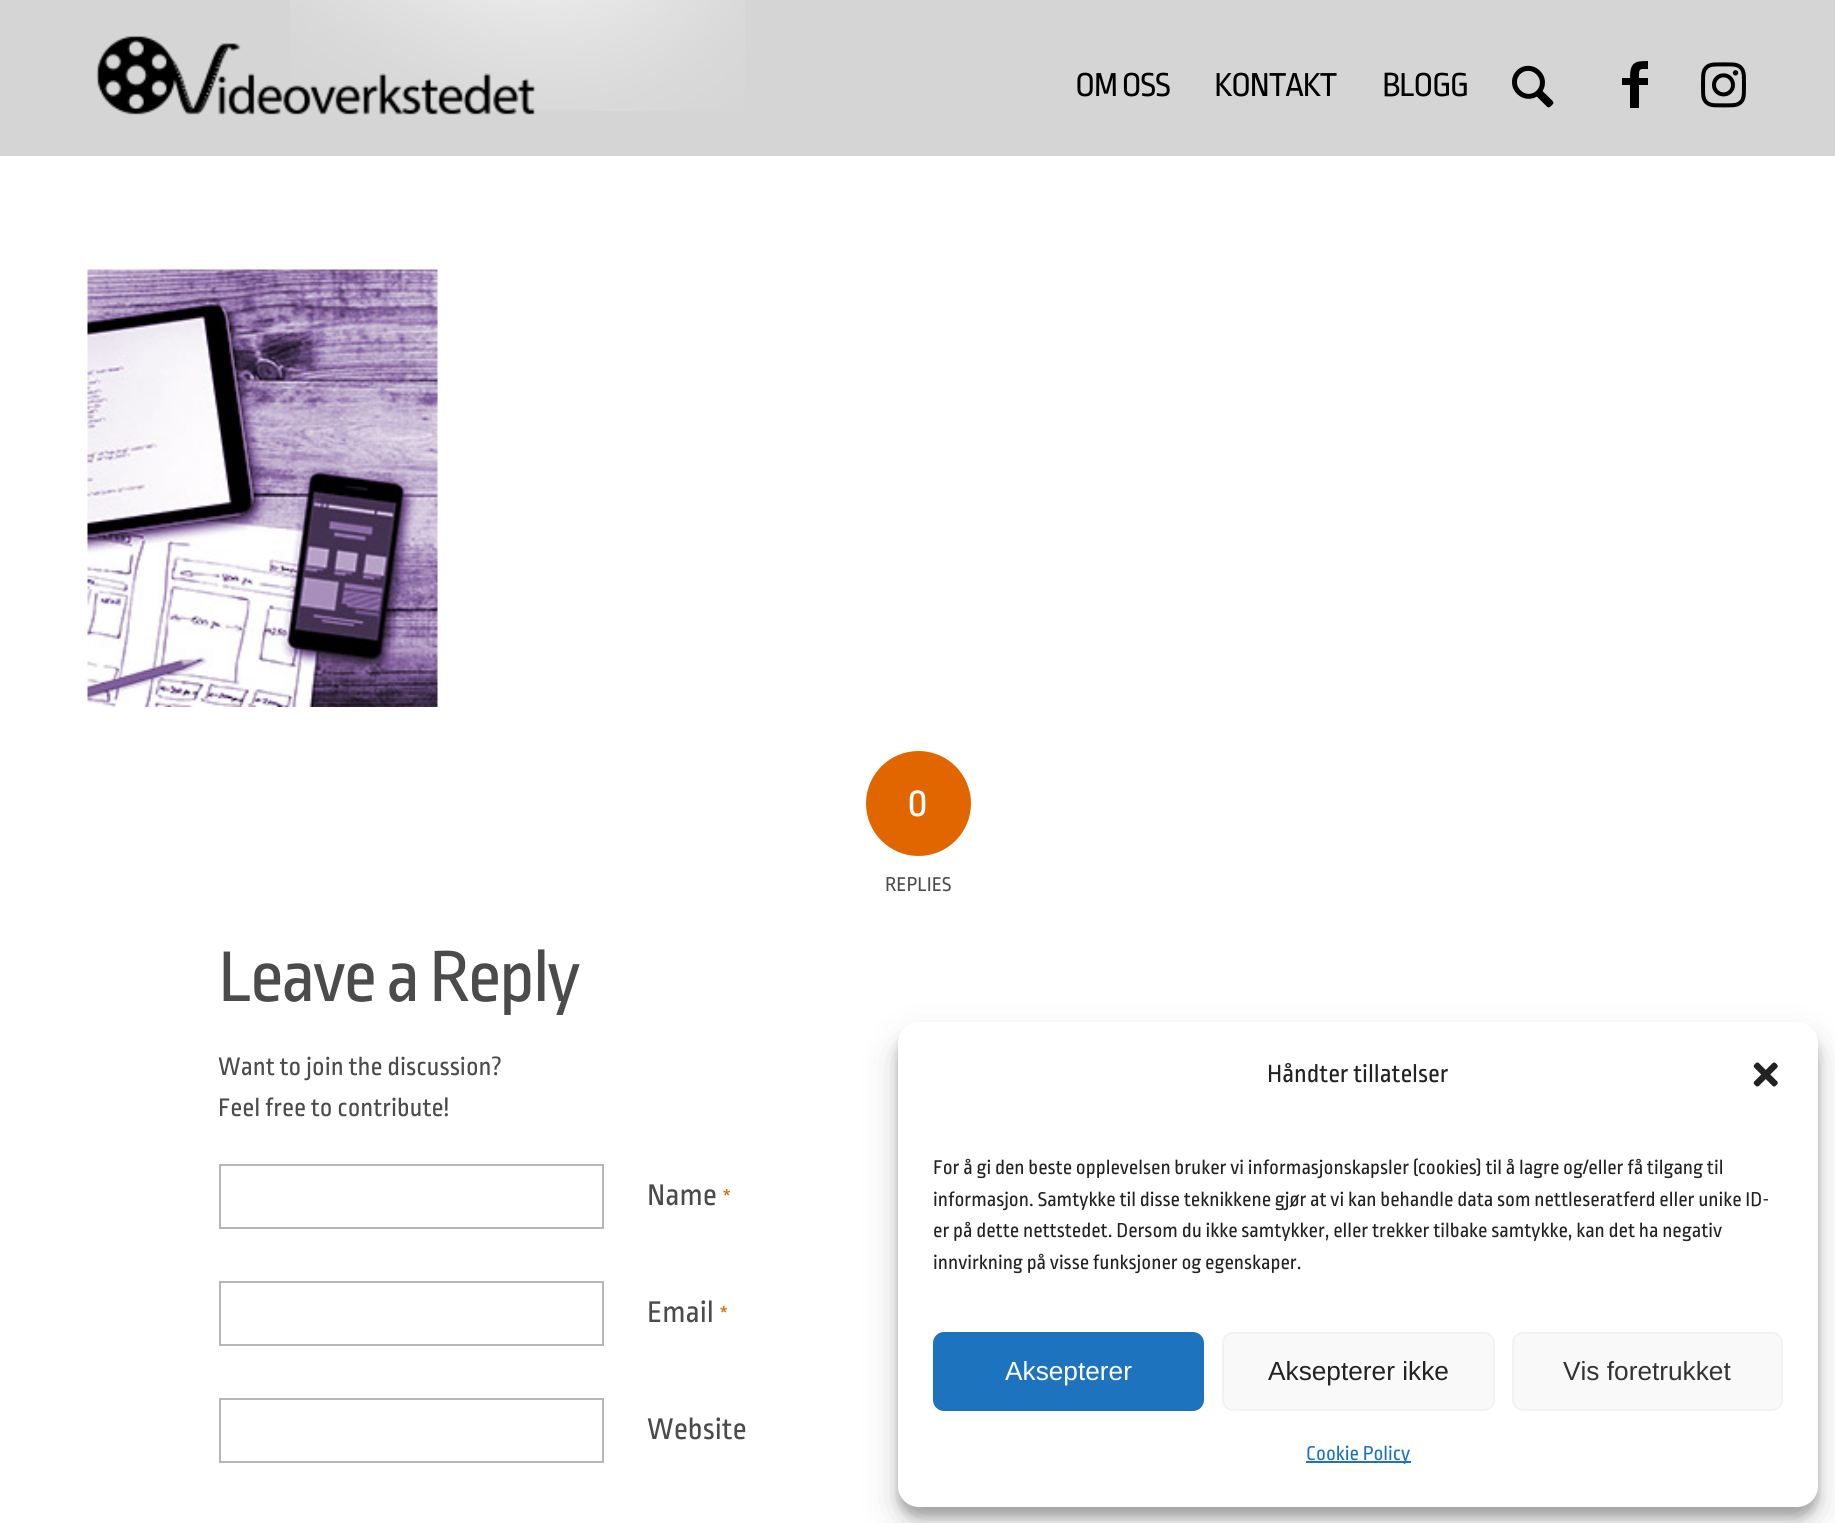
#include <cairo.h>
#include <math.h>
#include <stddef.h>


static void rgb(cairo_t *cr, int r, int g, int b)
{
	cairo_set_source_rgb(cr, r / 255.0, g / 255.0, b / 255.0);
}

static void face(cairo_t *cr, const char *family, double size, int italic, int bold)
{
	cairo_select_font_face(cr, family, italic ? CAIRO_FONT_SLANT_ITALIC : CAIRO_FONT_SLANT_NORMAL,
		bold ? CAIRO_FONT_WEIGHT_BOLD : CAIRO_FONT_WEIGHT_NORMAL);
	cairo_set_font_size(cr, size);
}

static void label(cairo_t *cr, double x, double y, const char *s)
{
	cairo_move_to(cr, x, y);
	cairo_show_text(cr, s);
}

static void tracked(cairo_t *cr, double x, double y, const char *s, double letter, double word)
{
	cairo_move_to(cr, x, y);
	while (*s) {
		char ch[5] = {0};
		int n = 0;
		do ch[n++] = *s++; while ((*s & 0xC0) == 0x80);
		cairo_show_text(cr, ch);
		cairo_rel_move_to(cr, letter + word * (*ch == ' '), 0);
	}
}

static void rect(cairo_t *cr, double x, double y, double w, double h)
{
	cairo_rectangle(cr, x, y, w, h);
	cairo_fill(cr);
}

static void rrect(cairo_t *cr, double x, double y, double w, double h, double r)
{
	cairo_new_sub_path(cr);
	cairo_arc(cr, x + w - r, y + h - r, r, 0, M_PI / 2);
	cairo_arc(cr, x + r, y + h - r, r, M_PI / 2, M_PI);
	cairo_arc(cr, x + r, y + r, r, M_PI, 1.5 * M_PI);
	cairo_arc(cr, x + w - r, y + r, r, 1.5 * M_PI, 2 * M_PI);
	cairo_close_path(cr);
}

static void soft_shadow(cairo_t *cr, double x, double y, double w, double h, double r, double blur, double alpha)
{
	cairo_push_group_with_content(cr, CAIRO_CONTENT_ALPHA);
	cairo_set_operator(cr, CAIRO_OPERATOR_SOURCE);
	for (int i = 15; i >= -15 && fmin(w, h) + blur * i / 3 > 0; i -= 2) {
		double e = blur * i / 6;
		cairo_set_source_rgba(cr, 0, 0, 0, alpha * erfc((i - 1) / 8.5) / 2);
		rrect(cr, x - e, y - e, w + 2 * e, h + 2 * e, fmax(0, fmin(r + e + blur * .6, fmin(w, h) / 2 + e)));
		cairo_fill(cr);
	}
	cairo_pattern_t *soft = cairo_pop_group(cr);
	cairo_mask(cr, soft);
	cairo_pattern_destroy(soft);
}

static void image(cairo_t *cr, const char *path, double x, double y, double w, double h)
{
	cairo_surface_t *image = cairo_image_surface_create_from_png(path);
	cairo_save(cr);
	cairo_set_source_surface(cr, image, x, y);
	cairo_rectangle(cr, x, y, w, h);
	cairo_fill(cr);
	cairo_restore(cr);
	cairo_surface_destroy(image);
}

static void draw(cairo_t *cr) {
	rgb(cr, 255, 255, 255);
	cairo_paint(cr);
	rgb(cr, 213, 213, 213);
	rect(cr, 0, 0, 1835, 156);
	image(cr, "image0.png", 290, 0, 455, 111);
	image(cr, "image1.png", 96, 35, 440, 80);
	face(cr, "Ropa Sans", 35, 0, 0);
	rgb(cr, 0, 0, 0);
	tracked(cr, 1075, 96, "OM OSS", -1.5, 0);
	tracked(cr, 1214, 96, "KONTAKT", -1.5, 0);
	tracked(cr, 1382, 96, "BLOGG", -1.5, 0);
	image(cr, "image2.png", 1512, 65, 42, 43);
	cairo_new_path(cr);
	cairo_move_to(cr, 1648, 69);
	cairo_curve_to(cr, 1639, 69, 1639, 68, 1639, 78);
	cairo_line_to(cr, 1648, 78);
	cairo_line_to(cr, 1648, 85);
	cairo_line_to(cr, 1639, 85);
	cairo_line_to(cr, 1639, 108);
	cairo_line_to(cr, 1630, 108);
	cairo_line_to(cr, 1630, 85);
	cairo_line_to(cr, 1622, 85);
	cairo_line_to(cr, 1622, 78);
	cairo_line_to(cr, 1630, 78);
	cairo_curve_to(cr, 1630, 62, 1635, 61, 1648, 61);
	cairo_close_path(cr);
	cairo_fill(cr);
	image(cr, "image3.png", 1701, 62, 45, 46);
	image(cr, "image4.png", 87, 269, 351, 438);
	rgb(cr, 226, 102, 0);
	cairo_arc(cr, 918.5, 803.5, 52.5, 0, 2 * M_PI);
	cairo_fill(cr);
	face(cr, "Ropa Sans", 42, 0, 0);
	rgb(cr, 255, 255, 255);
	label(cr, 907, 816, "0");
	face(cr, "Ropa Sans", 21, 0, 0);
	rgb(cr, 75, 75, 75);
	label(cr, 885, 891, "REPLIES");
	face(cr, "Ropa Sans", 75.5, 0, 0);
	tracked(cr, 218, 1001, "Leave a Reply", -2.25, 0);
	face(cr, "Ropa Sans", 26.75, 0, 0);
	label(cr, 218, 1075, "Want to join the discussion?");
	label(cr, 218, 1116, "Feel free to contribute!");
	cairo_rectangle(cr, 220, 1165, 383, 63);
	rgb(cr, 182, 182, 182);
	cairo_stroke(cr);
	face(cr, "Ropa Sans", 31.5, 0, 0);
	rgb(cr, 75, 75, 75);
	label(cr, 647, 1205, "Name");
	face(cr, "Ropa Sans", 23, 0, 0);
	rgb(cr, 226, 102, 0);
	label(cr, 722, 1205, "*");
	cairo_rectangle(cr, 220, 1282, 383, 63);
	rgb(cr, 182, 182, 182);
	cairo_stroke(cr);
	face(cr, "Ropa Sans", 31.5, 0, 0);
	rgb(cr, 75, 75, 75);
	label(cr, 647, 1322, "Email");
	face(cr, "Ropa Sans", 23, 0, 0);
	rgb(cr, 226, 102, 0);
	label(cr, 719, 1322, "*");
	cairo_rectangle(cr, 220, 1399, 383, 63);
	rgb(cr, 182, 182, 182);
	cairo_stroke(cr);
	face(cr, "Ropa Sans", 31.5, 0, 0);
	rgb(cr, 75, 75, 75);
	label(cr, 647, 1439, "Website");
	rgb(cr, 0, 0, 0);
	soft_shadow(cr, 898, 1033, 920, 484, 21, 5, 0.23);
	soft_shadow(cr, 898, 1040, 920, 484, 21, 17.5, 0.19);
	rgb(cr, 255, 255, 255);
	rrect(cr, 898, 1022, 920, 485, 21);
	cairo_fill(cr);
	face(cr, "Ropa Sans", 26.25, 0, 0);
	rgb(cr, 34, 34, 34);
	label(cr, 1267, 1082, "Håndter tillatelser");
	image(cr, "image5.png", 1753, 1062, 25, 25);
	face(cr, "Ropa Sans", 21, 0, 0);
	label(cr, 933, 1174, "For å gi den beste opplevelsen bruker vi informasjonskapsler (cookies) til å lagre og/eller få tilgang til");
	label(cr, 933, 1206, "informasjon. Samtykke til disse teknikkene gjør at vi kan behandle data som nettleseratferd eller unike ID-");
	label(cr, 933, 1237, "er på dette nettstedet. Dersom du ikke samtykker, eller trekker tilbake samtykke, kan det ha negativ");
	label(cr, 933, 1269, "innvirkning på visse funksjoner og egenskaper.");
	rgb(cr, 30, 115, 190);
	rrect(cr, 934, 1333, 269, 77, 10);
	cairo_fill_preserve(cr);
	cairo_stroke(cr);
	face(cr, "Liberation Sans", 26.25, 0, 0);
	rgb(cr, 255, 255, 255);
	label(cr, 1005, 1380, "Aksepterer");
	rgb(cr, 249, 249, 249);
	rrect(cr, 1223, 1333, 271, 77, 10);
	cairo_fill_preserve(cr);
	rgb(cr, 242, 242, 242);
	cairo_stroke(cr);
	rgb(cr, 34, 34, 34);
	label(cr, 1268, 1380, "Aksepterer ikke");
	rgb(cr, 249, 249, 249);
	rrect(cr, 1513, 1333, 269, 77, 10);
	cairo_fill_preserve(cr);
	rgb(cr, 242, 242, 242);
	cairo_stroke(cr);
	rgb(cr, 51, 51, 51);
	label(cr, 1563, 1380, "Vis foretrukket");
	rgb(cr, 30, 115, 190);
	rect(cr, 1306, 1461, 105, 2);
	face(cr, "Ropa Sans", 21, 0, 0);
	label(cr, 1306, 1460, "Cookie Policy");
}

int main(void) {
	cairo_surface_t *surface = cairo_image_surface_create(CAIRO_FORMAT_RGB24, 1835, 1523);
	cairo_t *cr = cairo_create(surface);
	cairo_font_options_t *options = cairo_font_options_create();
	cairo_font_options_set_hint_metrics(options, CAIRO_HINT_METRICS_OFF);
	cairo_font_options_set_hint_style(options, CAIRO_HINT_STYLE_NONE);
	cairo_set_font_options(cr, options);
	cairo_set_miter_limit(cr, 4);
	draw(cr);
	cairo_surface_write_to_png(surface, "render.png");
	cairo_font_options_destroy(options);
	cairo_destroy(cr);
	cairo_surface_destroy(surface);
	return 0;
}
